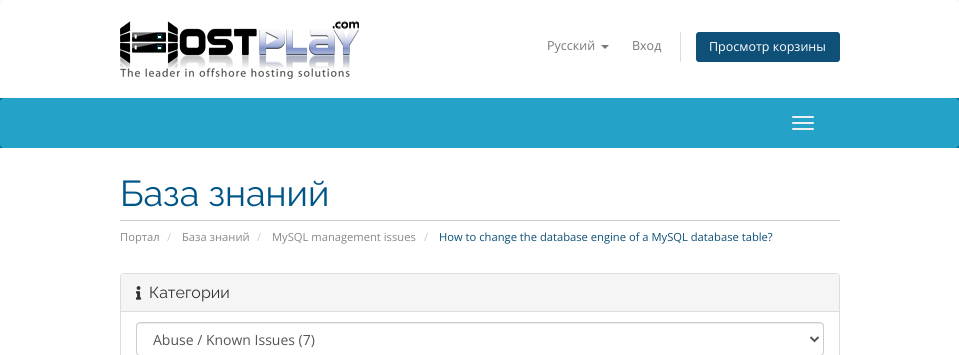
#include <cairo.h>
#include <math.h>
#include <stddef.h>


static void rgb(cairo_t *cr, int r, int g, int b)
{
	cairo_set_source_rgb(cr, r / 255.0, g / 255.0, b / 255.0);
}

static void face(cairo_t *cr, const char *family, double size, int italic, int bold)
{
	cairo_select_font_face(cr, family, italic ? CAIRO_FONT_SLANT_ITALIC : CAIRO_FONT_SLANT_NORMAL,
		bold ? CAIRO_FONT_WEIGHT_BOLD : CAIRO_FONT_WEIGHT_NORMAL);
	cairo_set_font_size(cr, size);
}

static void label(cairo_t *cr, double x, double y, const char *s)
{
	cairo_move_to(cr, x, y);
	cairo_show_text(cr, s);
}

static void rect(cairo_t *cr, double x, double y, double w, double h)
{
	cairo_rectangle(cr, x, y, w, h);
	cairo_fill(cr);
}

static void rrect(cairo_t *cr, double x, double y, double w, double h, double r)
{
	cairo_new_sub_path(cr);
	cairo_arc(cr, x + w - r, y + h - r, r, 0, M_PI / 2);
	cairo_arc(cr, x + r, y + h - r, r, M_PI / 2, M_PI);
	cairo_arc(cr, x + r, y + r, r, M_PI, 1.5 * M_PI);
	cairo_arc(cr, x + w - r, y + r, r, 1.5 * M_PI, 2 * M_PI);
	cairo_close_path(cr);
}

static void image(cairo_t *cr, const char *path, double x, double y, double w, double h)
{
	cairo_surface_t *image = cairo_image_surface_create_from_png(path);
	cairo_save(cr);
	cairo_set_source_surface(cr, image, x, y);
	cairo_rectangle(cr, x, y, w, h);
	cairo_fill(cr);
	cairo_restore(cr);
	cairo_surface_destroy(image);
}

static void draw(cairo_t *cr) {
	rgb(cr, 248, 248, 248);
	cairo_paint(cr);
	rgb(cr, 255, 255, 255);
	cairo_new_path(cr);
	cairo_move_to(cr, 5, 0);
	cairo_line_to(cr, 954, 0);
	cairo_curve_to(cr, 957, 0, 959, 2, 959, 5);
	cairo_line_to(cr, 959, 98);
	cairo_line_to(cr, 0, 98);
	cairo_line_to(cr, 0, 5);
	cairo_curve_to(cr, 0, 2, 2, 0, 5, 0);
	cairo_close_path(cr);
	cairo_fill(cr);
	image(cr, "image0.png", 120, 21, 239, 58);
	face(cr, "Open Sans", 12.5, 0, 0);
	rgb(cr, 119, 119, 119);
	label(cr, 547, 50, "Русский");
	cairo_new_path(cr);
	cairo_move_to(cr, 601, 45);
	cairo_line_to(cr, 609, 45);
	cairo_line_to(cr, 605, 49);
	cairo_close_path(cr);
	cairo_fill(cr);
	label(cr, 632, 50, "Вход");
	rgb(cr, 221, 221, 221);
	rect(cr, 680, 32, 1, 30);
	rgb(cr, 14, 80, 119);
	rrect(cr, 696, 32, 144, 30, 3);
	cairo_fill(cr);
	rgb(cr, 255, 255, 255);
	label(cr, 709, 51, "Просмотр корзины");
	rgb(cr, 0, 102, 135);
	rect(cr, 0, 98, 959, 50);
	rgb(cr, 37, 162, 199);
	rrect(cr, 0, 98, 959, 50, 4);
	cairo_fill(cr);
	rgb(cr, 238, 238, 238);
	rrect(cr, 792, 116, 22, 2, 1);
	cairo_fill(cr);
	rrect(cr, 792, 122, 22, 2, 1);
	cairo_fill(cr);
	rrect(cr, 792, 128, 22, 2, 1);
	cairo_fill(cr);
	rgb(cr, 255, 255, 255);
	rect(cr, 0, 148, 959, 207);
	rgb(cr, 204, 204, 204);
	rect(cr, 120, 220, 720, 1);
	face(cr, "Raleway", 36, 0, 0);
	rgb(cr, 0, 85, 136);
	label(cr, 120, 206, "База знаний");
	face(cr, "Open Sans", 11.2, 0, 0);
	rgb(cr, 136, 136, 136);
	label(cr, 120, 241, "Портал");
	rgb(cr, 204, 204, 204);
	label(cr, 167, 241, "/");
	rgb(cr, 136, 136, 136);
	label(cr, 182, 241, "База знаний");
	rgb(cr, 204, 204, 204);
	label(cr, 257, 241, "/");
	rgb(cr, 136, 136, 136);
	label(cr, 272, 241, "MySQL management issues");
	rgb(cr, 204, 204, 204);
	label(cr, 424, 241, "/");
	rgb(cr, 14, 80, 119);
	label(cr, 439, 241, "How to change the database engine of a MySQL database table?");
	rrect(cr, 120.5, 273.5, 719, 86, 3.5);
	rgb(cr, 221, 221, 221);
	cairo_set_line_width(cr, 1);
	cairo_stroke(cr);
	rgb(cr, 245, 245, 245);
	cairo_new_path(cr);
	cairo_move_to(cr, 124, 274);
	cairo_line_to(cr, 836, 274);
	cairo_curve_to(cr, 837.5, 274, 839, 275.5, 839, 277);
	cairo_line_to(cr, 839, 312);
	cairo_line_to(cr, 121, 312);
	cairo_line_to(cr, 121, 277);
	cairo_curve_to(cr, 121, 275.5, 122.5, 274, 124, 274);
	cairo_close_path(cr);
	cairo_fill(cr);
	rgb(cr, 221, 221, 221);
	rect(cr, 121, 311, 718, 1);
	image(cr, "image1.png", 136, 286, 6, 14);
	face(cr, "Raleway", 16, 0, 0);
	rgb(cr, 51, 51, 51);
	label(cr, 149, 298, "Категории");
	rgb(cr, 236, 236, 236);
	cairo_new_path(cr);
	cairo_move_to(cr, 140, 324);
	cairo_line_to(cr, 820, 324);
	cairo_curve_to(cr, 822, 324, 823, 325, 823, 327);
	cairo_line_to(cr, 823, 326);
	cairo_curve_to(cr, 823, 324, 822, 323, 820, 323);
	cairo_line_to(cr, 140, 323);
	cairo_curve_to(cr, 138, 323, 137, 324, 137, 326);
	cairo_line_to(cr, 137, 327);
	cairo_curve_to(cr, 137, 325, 138, 324, 140, 324);
	cairo_close_path(cr);
	cairo_fill(cr);
	rrect(cr, 136.5, 322.5, 687, 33, 3.5);
	rgb(cr, 204, 204, 204);
	cairo_stroke(cr);
	cairo_new_path(cr);
	cairo_move_to(cr, 810.5, 337);
	cairo_line_to(cr, 814.5, 341);
	cairo_line_to(cr, 818.5, 337);
	rgb(cr, 85, 85, 85);
	cairo_set_line_width(cr, 2);
	cairo_stroke(cr);
	face(cr, "Open Sans", 14, 0, 0);
	label(cr, 153, 345, "Abuse / Known Issues (7)");
}

int main(void) {
	cairo_surface_t *surface = cairo_image_surface_create(CAIRO_FORMAT_RGB24, 959, 355);
	cairo_t *cr = cairo_create(surface);
	cairo_font_options_t *options = cairo_font_options_create();
	cairo_font_options_set_hint_metrics(options, CAIRO_HINT_METRICS_OFF);
	cairo_font_options_set_hint_style(options, CAIRO_HINT_STYLE_NONE);
	cairo_set_font_options(cr, options);
	cairo_set_miter_limit(cr, 4);
	draw(cr);
	cairo_surface_write_to_png(surface, "render.png");
	cairo_font_options_destroy(options);
	cairo_destroy(cr);
	cairo_surface_destroy(surface);
	return 0;
}
